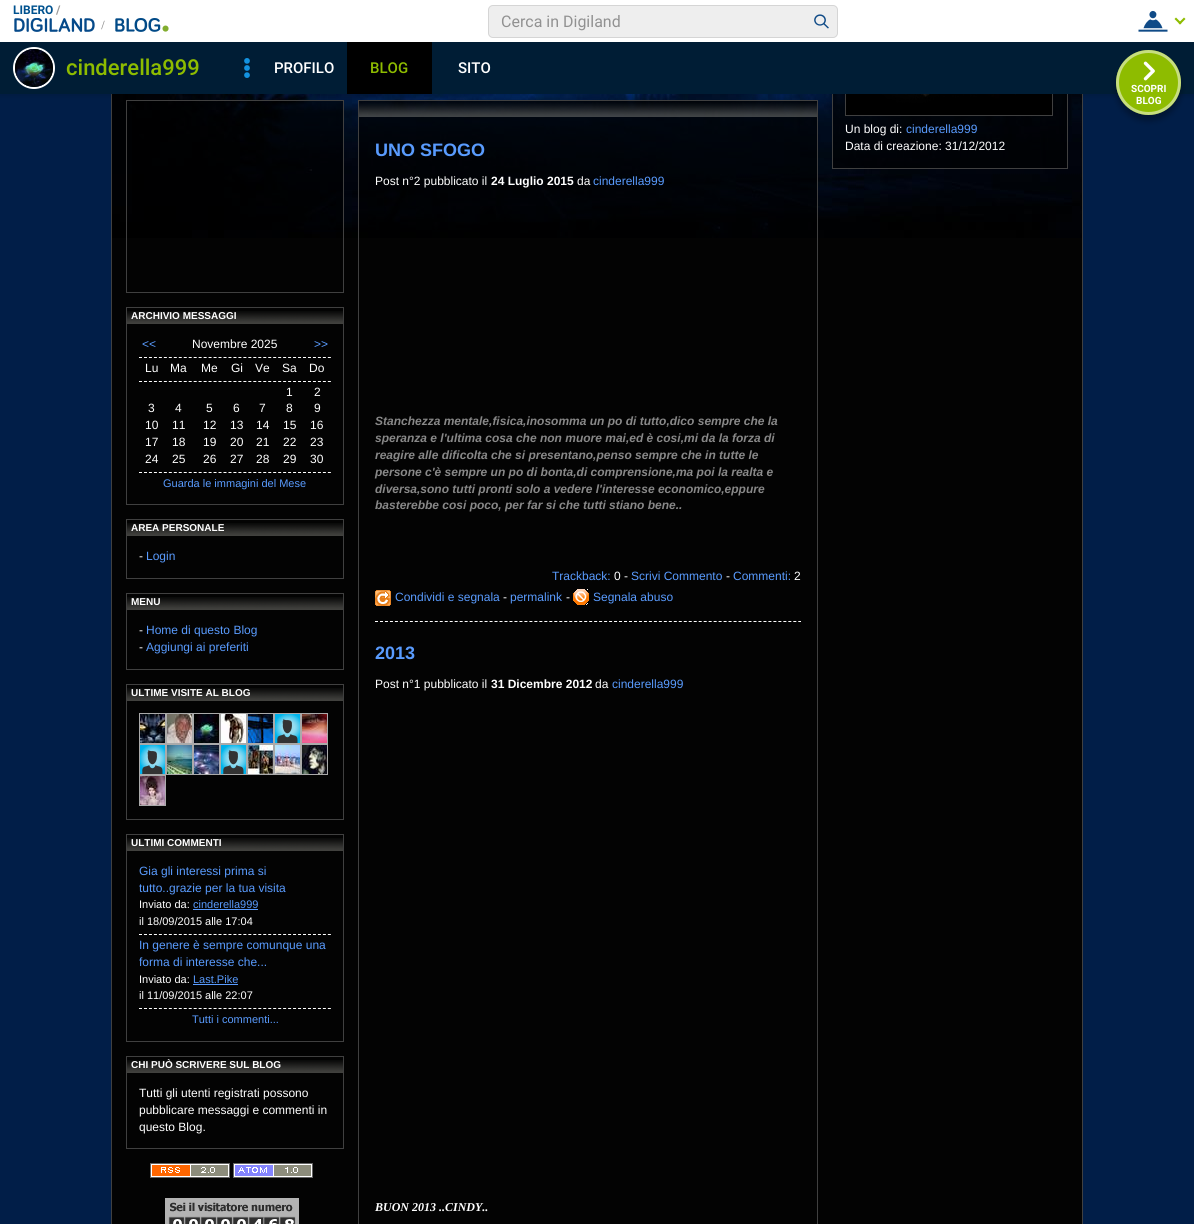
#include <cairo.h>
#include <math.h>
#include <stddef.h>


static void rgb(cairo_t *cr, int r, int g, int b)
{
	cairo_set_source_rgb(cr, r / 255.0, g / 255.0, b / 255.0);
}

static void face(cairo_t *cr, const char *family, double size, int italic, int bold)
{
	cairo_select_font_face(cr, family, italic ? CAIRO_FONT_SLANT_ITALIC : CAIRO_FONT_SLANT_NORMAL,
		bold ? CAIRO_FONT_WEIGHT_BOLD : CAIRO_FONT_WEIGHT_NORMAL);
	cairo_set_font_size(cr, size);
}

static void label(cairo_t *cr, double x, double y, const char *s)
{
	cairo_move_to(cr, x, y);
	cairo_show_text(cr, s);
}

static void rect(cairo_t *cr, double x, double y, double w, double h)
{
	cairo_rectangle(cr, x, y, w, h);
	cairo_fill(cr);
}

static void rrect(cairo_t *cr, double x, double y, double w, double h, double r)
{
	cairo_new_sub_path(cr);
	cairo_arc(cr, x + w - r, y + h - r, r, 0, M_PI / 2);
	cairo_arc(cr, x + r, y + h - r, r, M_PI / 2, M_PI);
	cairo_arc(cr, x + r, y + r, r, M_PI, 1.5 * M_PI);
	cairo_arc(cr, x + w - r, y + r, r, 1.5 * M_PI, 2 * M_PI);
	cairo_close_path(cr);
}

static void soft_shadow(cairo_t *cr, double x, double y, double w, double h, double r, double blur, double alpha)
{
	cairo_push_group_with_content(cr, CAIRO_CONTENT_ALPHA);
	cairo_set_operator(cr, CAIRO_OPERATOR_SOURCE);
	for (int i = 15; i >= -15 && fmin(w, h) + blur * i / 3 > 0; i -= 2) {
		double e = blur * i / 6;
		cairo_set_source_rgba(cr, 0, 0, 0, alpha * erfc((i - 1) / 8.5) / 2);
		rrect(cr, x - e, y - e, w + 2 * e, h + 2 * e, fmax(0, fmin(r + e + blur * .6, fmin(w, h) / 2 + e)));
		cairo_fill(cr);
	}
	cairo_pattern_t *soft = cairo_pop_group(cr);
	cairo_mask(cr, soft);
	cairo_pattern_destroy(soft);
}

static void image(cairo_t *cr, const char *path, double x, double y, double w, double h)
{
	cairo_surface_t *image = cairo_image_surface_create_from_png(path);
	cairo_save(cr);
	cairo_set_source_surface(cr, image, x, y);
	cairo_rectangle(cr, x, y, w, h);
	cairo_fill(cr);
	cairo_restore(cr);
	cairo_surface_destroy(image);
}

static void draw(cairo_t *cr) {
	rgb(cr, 1, 30, 72);
	cairo_paint(cr);
	image(cr, "image8.png", 112, 94, 970, 144);
	rgb(cr, 3, 3, 3);
	rect(cr, 112, 238, 970, 986);
	cairo_rectangle(cr, 111.5, -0.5, 971, 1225);
	rgb(cr, 64, 64, 64);
	cairo_set_line_width(cr, 1);
	cairo_stroke(cr);
	cairo_rectangle(cr, 832.5, -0.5, 235, 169);
	cairo_stroke(cr);
	cairo_set_source_rgba(cr, 0, 0, 0, 0.6);
	rect(cr, 833, 94, 234, 74);
	cairo_rectangle(cr, 845.5, -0.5, 207, 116);
	rgb(cr, 64, 64, 64);
	cairo_stroke(cr);
	image(cr, "image9.png", 846, 94, 206, 21);
	cairo_rectangle(cr, 126.5, 100.5, 217, 192);
	cairo_stroke(cr);
	cairo_set_source_rgba(cr, 0, 0, 0, 0.6);
	rect(cr, 132, 101, 211, 129);
	cairo_rectangle(cr, 358.5, 100.5, 459, 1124);
	rgb(cr, 64, 64, 64);
	cairo_stroke(cr);
	image(cr, "image27.png", 359, 101, 458, 16);
	rgb(cr, 0, 0, 0);
	soft_shadow(cr, 0, 0, 1194, 94, 0, 3, 0.2);
	rgb(cr, 255, 255, 255);
	rect(cr, 0, 0, 1194, 42);
	face(cr, "Roboto", 12, 0, 1);
	rgb(cr, 0, 82, 143);
	label(cr, 13, 14, "LIBERO");
	rgb(cr, 153, 153, 153);
	label(cr, 56, 14, "/");
	rgb(cr, 238, 238, 238);
	rrect(cr, 488.5, 5.5, 349, 32, 4.5);
	cairo_fill_preserve(cr);
	rgb(cr, 213, 213, 213);
	cairo_stroke(cr);
	face(cr, "Roboto", 16, 0, 0);
	rgb(cr, 145, 145, 145);
	label(cr, 501, 27, "Cerca in Digiland");
	image(cr, "image0.png", 814, 14, 15, 15);
	image(cr, "image1.png", 1138, 10, 30, 22);
	rgb(cr, 142, 188, 0);
	cairo_new_path(cr);
	cairo_move_to(cr, 1184, 17.5);
	cairo_line_to(cr, 1185.5, 19);
	cairo_line_to(cr, 1180, 24.5);
	cairo_line_to(cr, 1178.5, 23);
	cairo_close_path(cr);
	cairo_fill(cr);
	cairo_new_path(cr);
	cairo_move_to(cr, 1176, 17.5);
	cairo_line_to(cr, 1181.5, 23);
	cairo_line_to(cr, 1180, 24.5);
	cairo_line_to(cr, 1174.5, 19);
	cairo_close_path(cr);
	cairo_fill(cr);
	image(cr, "image2.png", 14, 18, 81, 14);
	image(cr, "image3.png", 101, 20, 4, 10);
	image(cr, "image4.png", 115, 18, 54, 14);
	rgb(cr, 0, 29, 53);
	rect(cr, 0, 42, 1194, 52);
	cairo_arc(cr, 34, 68, 20, 0, 2 * M_PI);
	rgb(cr, 255, 255, 255);
	cairo_set_line_width(cr, 2);
	cairo_stroke(cr);
	image(cr, "image5.png", 15, 49, 38, 38);
	face(cr, "Roboto Medium", 22, 0, 0);
	rgb(cr, 142, 188, 0);
	label(cr, 66, 75, "cinderella999");
	image(cr, "image6.png", 244, 58, 6, 20);
	face(cr, "Roboto Medium", 15, 0, 0);
	rgb(cr, 255, 255, 255);
	label(cr, 274, 73, "PROFILO");
	rgb(cr, 0, 0, 0);
	rect(cr, 347, 42, 85, 52);
	rgb(cr, 142, 188, 0);
	label(cr, 370, 73, "BLOG");
	rgb(cr, 255, 255, 255);
	label(cr, 458, 73, "SITO");
	rgb(cr, 0, 0, 0);
	soft_shadow(cr, 1116, 56, 65, 65, 32.5, 3, 0.3);
	rgb(cr, 142, 188, 0);
	cairo_arc(cr, 1148.5, 82.5, 32.5, 0, 2 * M_PI);
	cairo_fill(cr);
	cairo_arc(cr, 1148.5, 82.5, 31, 0, 2 * M_PI);
	cairo_set_source_rgba(cr, 1, 1, 1, 0.5);
	cairo_set_line_width(cr, 3);
	cairo_stroke(cr);
	image(cr, "image7.png", 1143, 61, 12, 20);
	face(cr, "Roboto", 10, 0, 1);
	rgb(cr, 255, 255, 255);
	label(cr, 1131, 92, "SCOPRI");
	label(cr, 1136, 104, "BLOG");
	face(cr, "Liberation Sans", 12, 0, 0);
	label(cr, 845, 133, "Un blog di:");
	rgb(cr, 89, 155, 254);
	label(cr, 906, 133, "cinderella999");
	rgb(cr, 255, 255, 255);
	label(cr, 845, 150, "Data di creazione: 31/12/2012");
	cairo_rectangle(cr, 126.5, 307.5, 217, 197);
	rgb(cr, 64, 64, 64);
	cairo_set_line_width(cr, 1);
	cairo_stroke(cr);
	image(cr, "image10.png", 127, 311, 216, 13);
	face(cr, "Liberation Sans", 10, 0, 1);
	rgb(cr, 255, 255, 255);
	label(cr, 131, 319, "ARCHIVIO MESSAGGI");
	face(cr, "Liberation Sans", 12, 0, 0);
	rgb(cr, 89, 155, 254);
	label(cr, 142, 348, "<<");
	rgb(cr, 255, 255, 255);
	label(cr, 192, 348, "Novembre 2025");
	rgb(cr, 89, 155, 254);
	label(cr, 314, 348, ">>");
	cairo_new_path(cr);
	cairo_move_to(cr, 139, 357.5);
	cairo_line_to(cr, 331, 357.5);
	rgb(cr, 255, 255, 255);
	cairo_set_dash(cr, (double[]){3, 1.97}, 2, 0);
	cairo_stroke(cr);
	label(cr, 145, 372, "Lu");
	label(cr, 170, 372, "Ma");
	label(cr, 201, 372, "Me");
	label(cr, 231, 372, "Gi");
	label(cr, 255, 372, "Ve");
	label(cr, 282, 372, "Sa");
	label(cr, 309, 372, "Do");
	cairo_new_path(cr);
	cairo_move_to(cr, 139, 381.5);
	cairo_line_to(cr, 331, 381.5);
	cairo_stroke(cr);
	label(cr, 286, 396, "1");
	label(cr, 314, 396, "2");
	label(cr, 148, 412, "3");
	label(cr, 175, 412, "4");
	label(cr, 206, 412, "5");
	label(cr, 233, 412, "6");
	label(cr, 259, 412, "7");
	label(cr, 286, 412, "8");
	label(cr, 314, 412, "9");
	label(cr, 145, 429, "10");
	label(cr, 172, 429, "11");
	label(cr, 203, 429, "12");
	label(cr, 230, 429, "13");
	label(cr, 256, 429, "14");
	label(cr, 283, 429, "15");
	label(cr, 310, 429, "16");
	label(cr, 145, 446, "17");
	label(cr, 172, 446, "18");
	label(cr, 203, 446, "19");
	label(cr, 230, 446, "20");
	label(cr, 256, 446, "21");
	label(cr, 283, 446, "22");
	label(cr, 310, 446, "23");
	label(cr, 145, 463, "24");
	label(cr, 172, 463, "25");
	label(cr, 203, 463, "26");
	label(cr, 230, 463, "27");
	label(cr, 256, 463, "28");
	label(cr, 283, 463, "29");
	label(cr, 310, 463, "30");
	cairo_new_path(cr);
	cairo_move_to(cr, 139, 472.5);
	cairo_line_to(cr, 331, 472.5);
	cairo_stroke(cr);
	face(cr, "Liberation Sans", 11, 0, 0);
	rgb(cr, 89, 155, 254);
	label(cr, 163, 487, "Guarda le immagini del Mese");
	cairo_rectangle(cr, 126.5, 519.5, 217, 59);
	rgb(cr, 64, 64, 64);
	cairo_set_dash(cr, NULL, 0, 0);
	cairo_stroke(cr);
	image(cr, "image10.png", 127, 523, 216, 13);
	face(cr, "Liberation Sans", 10, 0, 1);
	rgb(cr, 255, 255, 255);
	label(cr, 131, 531, "AREA PERSONALE");
	face(cr, "Liberation Sans", 12, 0, 0);
	label(cr, 139, 560, "-");
	rgb(cr, 89, 155, 254);
	label(cr, 146, 560, "Login");
	cairo_rectangle(cr, 126.5, 593.5, 217, 76);
	rgb(cr, 64, 64, 64);
	cairo_stroke(cr);
	image(cr, "image10.png", 127, 597, 216, 13);
	face(cr, "Liberation Sans", 10, 0, 1);
	rgb(cr, 255, 255, 255);
	label(cr, 131, 605, "MENU");
	face(cr, "Liberation Sans", 12, 0, 0);
	label(cr, 139, 634, "-");
	rgb(cr, 89, 155, 254);
	label(cr, 146, 634, "Home di questo Blog");
	rgb(cr, 255, 255, 255);
	label(cr, 139, 651, "-");
	rgb(cr, 89, 155, 254);
	label(cr, 146, 651, "Aggiungi ai preferiti");
	cairo_rectangle(cr, 126.5, 684.5, 217, 135);
	rgb(cr, 64, 64, 64);
	cairo_stroke(cr);
	image(cr, "image10.png", 127, 688, 216, 13);
	face(cr, "Liberation Sans", 10, 0, 1);
	rgb(cr, 255, 255, 255);
	label(cr, 131, 696, "ULTIME VISITE AL BLOG");
	cairo_rectangle(cr, 139.5, 713.5, 26, 30);
	rgb(cr, 170, 170, 170);
	cairo_stroke(cr);
	cairo_rectangle(cr, 166.5, 713.5, 26, 30);
	cairo_stroke(cr);
	cairo_rectangle(cr, 193.5, 713.5, 26, 30);
	cairo_stroke(cr);
	cairo_rectangle(cr, 220.5, 713.5, 26, 30);
	cairo_stroke(cr);
	cairo_rectangle(cr, 247.5, 713.5, 26, 30);
	cairo_stroke(cr);
	cairo_rectangle(cr, 274.5, 713.5, 26, 30);
	cairo_stroke(cr);
	cairo_rectangle(cr, 301.5, 713.5, 26, 30);
	cairo_stroke(cr);
	image(cr, "image11.png", 140, 714, 25, 29);
	image(cr, "image12.png", 167, 714, 25, 29);
	image(cr, "image13.png", 194, 714, 25, 29);
	image(cr, "image14.png", 221, 714, 25, 29);
	image(cr, "image15.png", 248, 714, 25, 29);
	image(cr, "image16.png", 275, 714, 25, 29);
	image(cr, "image17.png", 302, 714, 25, 29);
	cairo_rectangle(cr, 139.5, 744.5, 26, 30);
	cairo_stroke(cr);
	cairo_rectangle(cr, 166.5, 744.5, 26, 30);
	cairo_stroke(cr);
	cairo_rectangle(cr, 193.5, 744.5, 26, 30);
	cairo_stroke(cr);
	cairo_rectangle(cr, 220.5, 744.5, 26, 30);
	cairo_stroke(cr);
	cairo_rectangle(cr, 247.5, 744.5, 26, 30);
	cairo_stroke(cr);
	cairo_rectangle(cr, 274.5, 744.5, 26, 30);
	cairo_stroke(cr);
	cairo_rectangle(cr, 301.5, 744.5, 26, 30);
	cairo_stroke(cr);
	image(cr, "image16.png", 140, 745, 25, 29);
	image(cr, "image18.png", 167, 745, 25, 29);
	image(cr, "image19.png", 194, 745, 25, 29);
	image(cr, "image16.png", 221, 745, 25, 29);
	image(cr, "image20.png", 248, 745, 25, 29);
	image(cr, "image21.png", 275, 745, 25, 29);
	image(cr, "image22.png", 302, 745, 25, 29);
	cairo_rectangle(cr, 139.5, 775.5, 26, 30);
	cairo_stroke(cr);
	image(cr, "image23.png", 140, 776, 25, 29);
	cairo_rectangle(cr, 126.5, 834.5, 217, 207);
	rgb(cr, 64, 64, 64);
	cairo_stroke(cr);
	image(cr, "image10.png", 127, 838, 216, 13);
	rgb(cr, 255, 255, 255);
	label(cr, 131, 846, "ULTIMI COMMENTI");
	face(cr, "Liberation Sans", 12, 0, 0);
	rgb(cr, 89, 155, 254);
	label(cr, 139, 875, "Gia gli interessi prima si");
	label(cr, 139, 892, "tutto..grazie per la tua visita");
	face(cr, "Liberation Sans", 11, 0, 0);
	rgb(cr, 255, 255, 255);
	label(cr, 139, 908, "Inviato da:");
	rgb(cr, 89, 155, 254);
	label(cr, 193, 908, "cinderella999");
	rect(cr, 193, 909, 65, 1);
	rgb(cr, 255, 255, 255);
	label(cr, 139, 925, "il 18/09/2015 alle 17:04");
	cairo_new_path(cr);
	cairo_move_to(cr, 139, 934.5);
	cairo_line_to(cr, 331, 934.5);
	cairo_set_dash(cr, (double[]){3, 1.97}, 2, 0);
	cairo_stroke(cr);
	face(cr, "Liberation Sans", 12, 0, 0);
	rgb(cr, 89, 155, 254);
	label(cr, 139, 949, "In genere è sempre comunque una");
	label(cr, 139, 966, "forma di interesse che...");
	face(cr, "Liberation Sans", 11, 0, 0);
	rgb(cr, 255, 255, 255);
	label(cr, 139, 983, "Inviato da:");
	rgb(cr, 89, 155, 254);
	label(cr, 193, 983, "Last.Pike");
	rect(cr, 193, 984, 45, 1);
	rgb(cr, 255, 255, 255);
	label(cr, 139, 999, "il 11/09/2015 alle 22:07");
	cairo_new_path(cr);
	cairo_move_to(cr, 139, 1008.5);
	cairo_line_to(cr, 331, 1008.5);
	cairo_stroke(cr);
	rgb(cr, 89, 155, 254);
	label(cr, 192, 1023, "Tutti i commenti...");
	cairo_rectangle(cr, 126.5, 1056.5, 217, 92);
	rgb(cr, 64, 64, 64);
	cairo_set_dash(cr, NULL, 0, 0);
	cairo_stroke(cr);
	image(cr, "image10.png", 127, 1060, 216, 13);
	face(cr, "Liberation Sans", 10, 0, 1);
	rgb(cr, 255, 255, 255);
	label(cr, 131, 1068, "CHI PUÒ SCRIVERE SUL BLOG");
	face(cr, "Liberation Sans", 12, 0, 0);
	label(cr, 139, 1097, "Tutti gli utenti registrati possono");
	label(cr, 139, 1114, "pubblicare messaggi e commenti in");
	label(cr, 139, 1131, "questo Blog.");
	image(cr, "image24.png", 150, 1163, 80, 15);
	image(cr, "image25.png", 233, 1163, 80, 15);
	image(cr, "image26.png", 165, 1198, 134, 26);
	cairo_set_source_rgba(cr, 0, 0, 0, 0.6);
	rect(cr, 359, 117, 458, 121);
	face(cr, "Liberation Sans", 18, 0, 1);
	rgb(cr, 89, 155, 254);
	label(cr, 375, 156, "UNO SFOGO");
	face(cr, "Liberation Sans", 12, 0, 0);
	rgb(cr, 255, 255, 255);
	label(cr, 375, 185, "Post n°2 pubblicato il");
	face(cr, "Liberation Sans", 12, 0, 1);
	label(cr, 491, 185, "24 Luglio 2015");
	face(cr, "Liberation Sans", 12, 0, 0);
	label(cr, 577, 185, "da");
	rgb(cr, 89, 155, 254);
	label(cr, 593, 185, "cinderella999");
	face(cr, "Liberation Sans", 12, 1, 1);
	rgb(cr, 136, 136, 136);
	label(cr, 375, 425, "Stanchezza mentale,fisica,inosomma un po di tutto,dico sempre che la");
	label(cr, 375, 442, "speranza e l'ultima cosa che non muore mai,ed è cosi,mi da la forza di");
	label(cr, 375, 459, "reagire alle dificolta che si presentano,penso sempre che in tutte le");
	label(cr, 375, 476, "persone c'è sempre un po di bonta,di comprensione,ma poi la realta e");
	label(cr, 375, 493, "diversa,sono tutti pronti solo a vedere l'interesse economico,eppure");
	label(cr, 375, 509, "basterebbe cosi poco, per far si che tutti stiano bene..");
	face(cr, "Liberation Sans", 12, 0, 0);
	rgb(cr, 89, 155, 254);
	label(cr, 552, 580, "Trackback:");
	rgb(cr, 255, 255, 255);
	label(cr, 614, 580, "0 -");
	rgb(cr, 89, 155, 254);
	label(cr, 631, 580, "Scrivi Commento");
	rgb(cr, 255, 255, 255);
	label(cr, 726, 580, "-");
	rgb(cr, 89, 155, 254);
	label(cr, 733, 580, "Commenti:");
	rgb(cr, 255, 255, 255);
	label(cr, 794, 580, "2");
	image(cr, "image28.png", 375, 590, 16, 16);
	rgb(cr, 89, 155, 254);
	label(cr, 395, 601, "Condividi e segnala");
	rgb(cr, 255, 255, 255);
	label(cr, 503, 601, "-");
	rgb(cr, 89, 155, 254);
	label(cr, 510, 601, "permalink");
	rgb(cr, 255, 255, 255);
	label(cr, 566, 601, "-");
	image(cr, "image29.png", 573, 589, 16, 16);
	rgb(cr, 89, 155, 254);
	label(cr, 593, 601, "Segnala abuso");
	cairo_new_path(cr);
	cairo_move_to(cr, 375, 621.5);
	cairo_line_to(cr, 801, 621.5);
	rgb(cr, 255, 255, 255);
	cairo_set_dash(cr, (double[]){3, 1.98}, 2, 0);
	cairo_stroke(cr);
	face(cr, "Liberation Sans", 18, 0, 1);
	rgb(cr, 89, 155, 254);
	label(cr, 375, 659, "2013");
	face(cr, "Liberation Sans", 12, 0, 0);
	rgb(cr, 255, 255, 255);
	label(cr, 375, 688, "Post n°1 pubblicato il");
	face(cr, "Liberation Sans", 12, 0, 1);
	label(cr, 491, 688, "31 Dicembre 2012");
	face(cr, "Liberation Sans", 12, 0, 0);
	label(cr, 595, 688, "da");
	rgb(cr, 89, 155, 254);
	label(cr, 612, 688, "cinderella999");
	face(cr, "Liberation Serif", 12, 1, 1);
	rgb(cr, 255, 255, 255);
	label(cr, 375, 1211, "BUON 2013 ..CINDY..");
}

int main(void) {
	cairo_surface_t *surface = cairo_image_surface_create(CAIRO_FORMAT_RGB24, 1194, 1224);
	cairo_t *cr = cairo_create(surface);
	cairo_font_options_t *options = cairo_font_options_create();
	cairo_font_options_set_hint_metrics(options, CAIRO_HINT_METRICS_OFF);
	cairo_font_options_set_hint_style(options, CAIRO_HINT_STYLE_NONE);
	cairo_set_font_options(cr, options);
	cairo_set_miter_limit(cr, 4);
	draw(cr);
	cairo_surface_write_to_png(surface, "render.png");
	cairo_font_options_destroy(options);
	cairo_destroy(cr);
	cairo_surface_destroy(surface);
	return 0;
}
